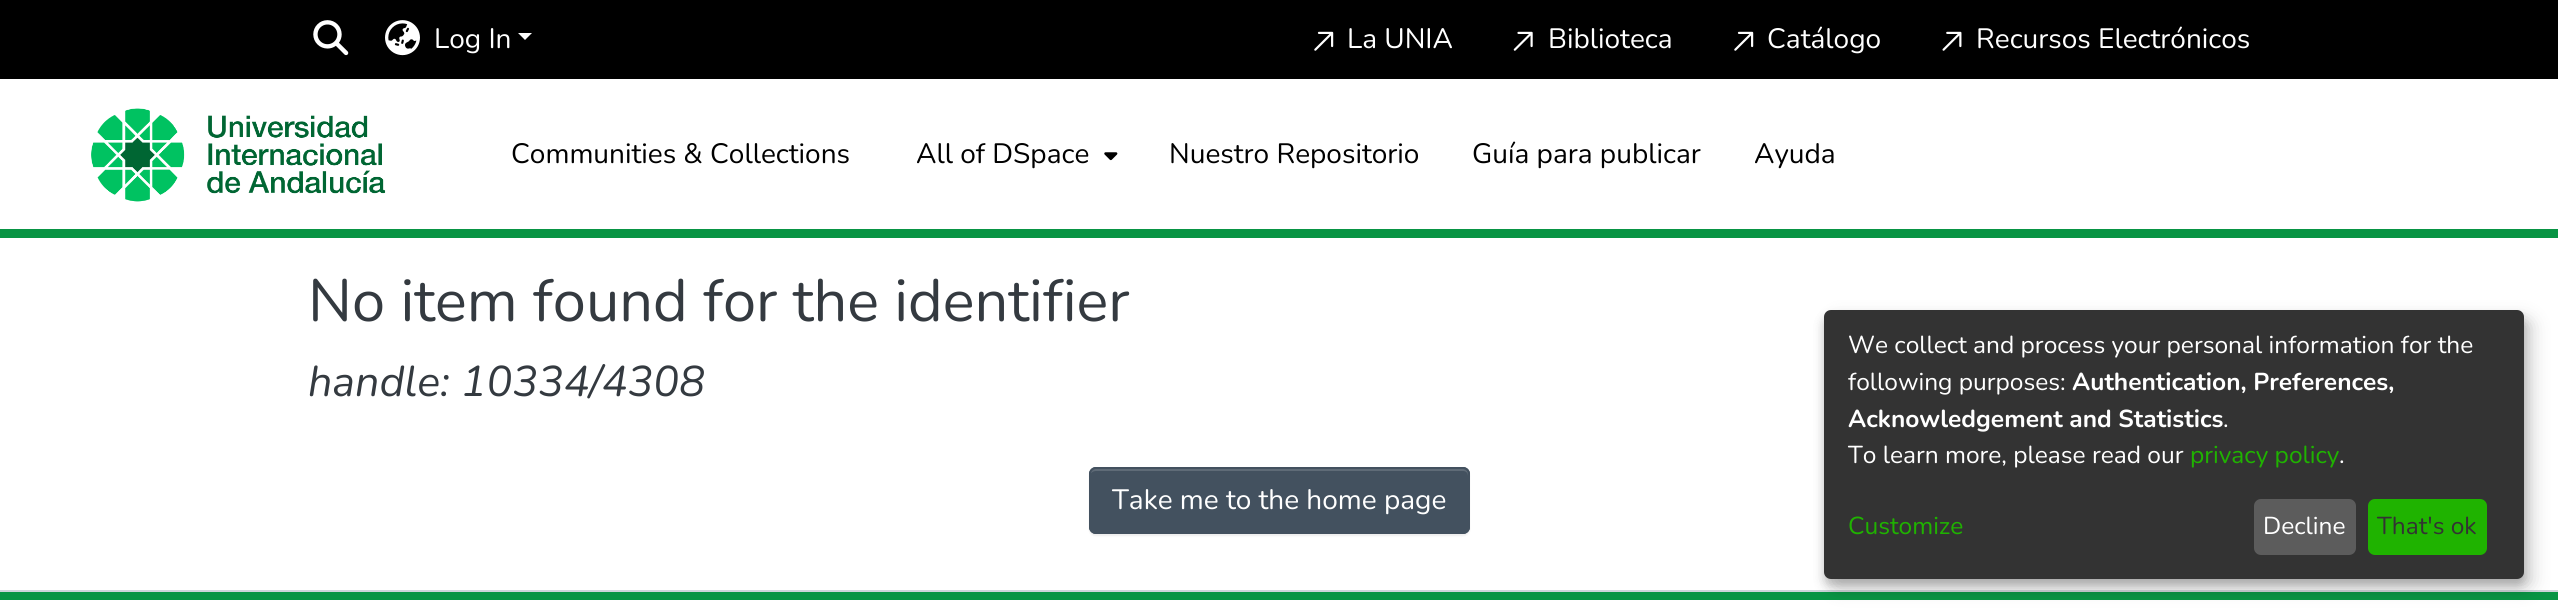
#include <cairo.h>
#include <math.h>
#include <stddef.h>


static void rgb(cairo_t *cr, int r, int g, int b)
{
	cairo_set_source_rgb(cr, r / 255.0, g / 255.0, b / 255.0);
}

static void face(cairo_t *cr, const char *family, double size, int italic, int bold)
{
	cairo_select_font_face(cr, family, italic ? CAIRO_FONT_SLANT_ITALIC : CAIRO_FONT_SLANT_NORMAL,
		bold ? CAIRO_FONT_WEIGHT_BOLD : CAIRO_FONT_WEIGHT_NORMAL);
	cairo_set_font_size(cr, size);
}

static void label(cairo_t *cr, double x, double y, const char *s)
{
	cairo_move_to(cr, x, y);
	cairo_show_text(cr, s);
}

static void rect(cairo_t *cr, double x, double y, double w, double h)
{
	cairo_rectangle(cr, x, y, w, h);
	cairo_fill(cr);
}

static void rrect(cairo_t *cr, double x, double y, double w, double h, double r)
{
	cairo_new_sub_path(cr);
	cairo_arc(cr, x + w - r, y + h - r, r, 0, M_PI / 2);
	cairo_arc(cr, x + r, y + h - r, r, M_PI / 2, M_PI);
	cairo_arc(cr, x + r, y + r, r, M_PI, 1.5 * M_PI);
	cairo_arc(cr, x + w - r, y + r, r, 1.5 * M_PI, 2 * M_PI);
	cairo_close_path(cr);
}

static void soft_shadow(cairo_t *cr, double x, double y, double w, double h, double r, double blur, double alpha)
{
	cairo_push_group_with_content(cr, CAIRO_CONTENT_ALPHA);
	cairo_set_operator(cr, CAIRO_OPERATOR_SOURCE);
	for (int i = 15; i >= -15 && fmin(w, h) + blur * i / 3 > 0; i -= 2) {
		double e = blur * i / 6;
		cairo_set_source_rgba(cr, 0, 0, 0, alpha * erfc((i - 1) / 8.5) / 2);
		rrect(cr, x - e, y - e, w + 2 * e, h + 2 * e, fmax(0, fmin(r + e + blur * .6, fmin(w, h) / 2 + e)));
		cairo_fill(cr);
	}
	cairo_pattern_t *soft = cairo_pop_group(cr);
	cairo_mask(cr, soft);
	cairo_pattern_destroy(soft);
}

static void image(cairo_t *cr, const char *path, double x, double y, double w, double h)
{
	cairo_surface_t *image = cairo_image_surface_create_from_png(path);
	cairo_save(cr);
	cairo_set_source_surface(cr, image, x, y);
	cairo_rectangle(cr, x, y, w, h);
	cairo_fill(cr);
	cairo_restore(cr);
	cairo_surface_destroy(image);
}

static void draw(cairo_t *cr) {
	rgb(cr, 255, 255, 255);
	cairo_paint(cr);
	rgb(cr, 8, 148, 68);
	rect(cr, 0, 229, 2558, 9);
	rgb(cr, 0, 0, 0);
	rect(cr, 0, 0, 2558, 79);
	image(cr, "image0.png", 313, 20, 36, 36);
	image(cr, "image1.png", 385, 20, 35, 36);
	face(cr, "Nunito", 28, 0, 0);
	rgb(cr, 255, 255, 255);
	label(cr, 434, 48, "Log In");
	cairo_new_path(cr);
	cairo_move_to(cr, 518, 33);
	cairo_line_to(cr, 532, 33);
	cairo_line_to(cr, 525, 40);
	cairo_close_path(cr);
	cairo_fill(cr);
	image(cr, "image2.png", 1314, 31, 20, 20);
	label(cr, 1347, 48, "La UNIA");
	image(cr, "image3.png", 1513, 31, 20, 20);
	label(cr, 1548, 48, "Biblioteca");
	image(cr, "image2.png", 1734, 31, 20, 20);
	label(cr, 1767, 48, "Catálogo");
	image(cr, "image4.png", 1942, 31, 20, 20);
	label(cr, 1976, 48, "Recursos Electrónicos");
	image(cr, "image5.png", 91, 108, 295, 94);
	rgb(cr, 0, 0, 0);
	label(cr, 511, 163, "Communities & Collections");
	label(cr, 916, 163, "All of DSpace");
	image(cr, "image6.png", 1104, 152, 14, 9);
	label(cr, 1169, 163, "Nuestro Repositorio");
	label(cr, 1472, 163, "Guía para publicar");
	label(cr, 1754, 163, "Ayuda");
	face(cr, "Nunito", 59.5, 0, 0);
	rgb(cr, 52, 58, 64);
	label(cr, 308, 321, "No item found for the identifier");
	face(cr, "Nunito", 42.9, 1, 0);
	label(cr, 308, 396, "handle: 10334/4308");
	rgb(cr, 0, 0, 0);
	soft_shadow(cr, 1089, 469, 381, 67, 7, 1, 0.07);
	rgb(cr, 67, 81, 95);
	rrect(cr, 1089, 467, 381, 67, 7);
	cairo_fill(cr);
	rgb(cr, 95, 107, 119);
	cairo_new_path(cr);
	cairo_move_to(cr, 1096, 471);
	cairo_line_to(cr, 1463, 471);
	cairo_curve_to(cr, 1466, 471, 1468, 473, 1468, 476);
	cairo_line_to(cr, 1468, 474);
	cairo_curve_to(cr, 1468, 471, 1466, 469, 1463, 469);
	cairo_line_to(cr, 1095, 469);
	cairo_curve_to(cr, 1092, 469, 1090, 471, 1090, 474);
	cairo_line_to(cr, 1090, 476);
	cairo_curve_to(cr, 1090, 473, 1093, 471, 1096, 471);
	cairo_close_path(cr);
	cairo_fill(cr);
	rrect(cr, 1090, 468, 379, 65, 6);
	rgb(cr, 67, 81, 95);
	cairo_stroke(cr);
	face(cr, "Nunito", 28, 0, 0);
	rgb(cr, 255, 255, 255);
	label(cr, 1112, 509, "Take me to the home page");
	rgb(cr, 206, 212, 218);
	rect(cr, 0, 590, 2558, 2);
	rgb(cr, 8, 148, 68);
	rect(cr, 0, 592, 2558, 8);
	rgb(cr, 0, 0, 0);
	soft_shadow(cr, 1832, 319, 700, 269, 7, 9, 0.19);
	soft_shadow(cr, 1824, 317, 700, 269, 7, 5, 0.2);
	rgb(cr, 51, 51, 51);
	rrect(cr, 1824, 310, 700, 269, 7);
	cairo_fill(cr);
	face(cr, "Nunito", 24.5, 0, 0);
	rgb(cr, 255, 255, 255);
	label(cr, 1848, 353, "We collect and process your personal information for the");
	label(cr, 1848, 390, "following purposes:");
	face(cr, "Nunito", 24.5, 0, 1);
	label(cr, 2072, 390, "Authentication, Preferences,");
	label(cr, 1848, 427, "Acknowledgement and Statistics");
	face(cr, "Nunito", 24.5, 0, 0);
	label(cr, 2223, 427, ".");
	label(cr, 1848, 463, "To learn more, please read our");
	rgb(cr, 31, 179, 0);
	label(cr, 2190, 463, "privacy policy");
	rgb(cr, 255, 255, 255);
	label(cr, 2339, 463, ".");
	rgb(cr, 31, 179, 0);
	label(cr, 1848, 534, "Customize");
	rgb(cr, 92, 92, 92);
	rrect(cr, 2254, 499, 102, 56, 7);
	cairo_fill(cr);
	rgb(cr, 255, 255, 255);
	label(cr, 2263, 534, "Decline");
	rgb(cr, 31, 179, 0);
	rrect(cr, 2368, 499, 119, 56, 7);
	cairo_fill(cr);
	rgb(cr, 51, 51, 51);
	label(cr, 2377, 534, "That's ok");
}

int main(void) {
	cairo_surface_t *surface = cairo_image_surface_create(CAIRO_FORMAT_RGB24, 2558, 613);
	cairo_t *cr = cairo_create(surface);
	cairo_font_options_t *options = cairo_font_options_create();
	cairo_font_options_set_hint_metrics(options, CAIRO_HINT_METRICS_OFF);
	cairo_font_options_set_hint_style(options, CAIRO_HINT_STYLE_NONE);
	cairo_set_font_options(cr, options);
	cairo_set_miter_limit(cr, 4);
	draw(cr);
	cairo_surface_write_to_png(surface, "render.png");
	cairo_font_options_destroy(options);
	cairo_destroy(cr);
	cairo_surface_destroy(surface);
	return 0;
}
